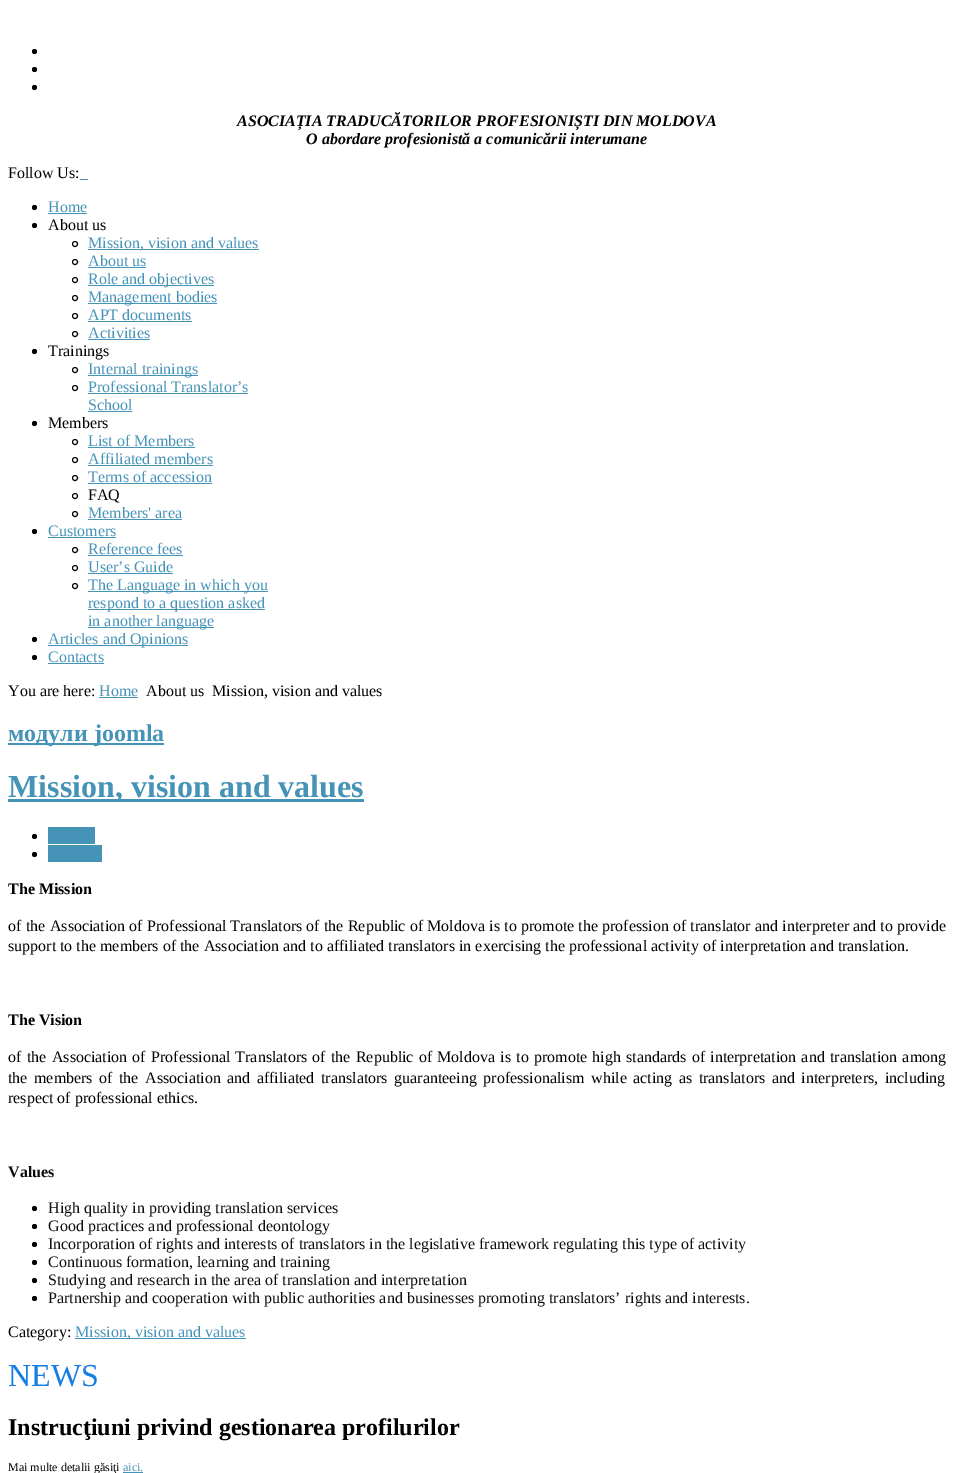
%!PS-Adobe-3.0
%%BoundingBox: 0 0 953 1473
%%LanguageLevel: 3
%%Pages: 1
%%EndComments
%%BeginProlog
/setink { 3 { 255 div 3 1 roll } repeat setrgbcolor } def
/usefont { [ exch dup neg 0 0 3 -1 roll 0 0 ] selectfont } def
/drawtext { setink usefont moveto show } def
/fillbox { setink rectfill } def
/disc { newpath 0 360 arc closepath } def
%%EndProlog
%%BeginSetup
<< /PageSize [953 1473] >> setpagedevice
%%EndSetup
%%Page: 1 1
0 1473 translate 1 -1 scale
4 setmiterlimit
0 0 953 1473 255 255 255 fillbox
0 0 0 setink
34.5 51.5 2.5 disc fill
34.5 69.5 2.5 disc fill
34.5 87.5 2.5 disc fill
(ASOCIAȚIA TRADUCĂTORILOR PROFESIONIȘTI DIN MOLDOVA) 237 126 /LiberationSerif-BoldItalic 16 0 0 0 drawtext
(O abordare profesionistă a comunicării interumane) 306 144 /LiberationSerif-BoldItalic 16 0 0 0 drawtext
(Follow Us:) 8 178 /LiberationSerif-Regular 16 0 0 0 drawtext
80 179 8 1 70 147 184 fillbox
0 0 0 setink
34.5 207.5 2.5 disc fill
(Home) 48 212 /LiberationSerif-Regular 16 70 147 184 drawtext
48 213 39 1 70 147 184 fillbox
0 0 0 setink
34.5 225.5 2.5 disc fill
(About us) 48 230 /LiberationSerif-Regular 16 0 0 0 drawtext
75 244 2.5 disc stroke
88 249 171 1 70 147 184 fillbox
(Mission, vision and values) 88 248 /LiberationSerif-Regular 16 70 147 184 drawtext
0 0 0 setink
75 262 2.5 disc stroke
(About us) 88 266 /LiberationSerif-Regular 16 70 147 184 drawtext
88 267 58 1 70 147 184 fillbox
0 0 0 setink
75 280 2.5 disc stroke
88 285 126 1 70 147 184 fillbox
(Role and objectives) 88 284 /LiberationSerif-Regular 16 70 147 184 drawtext
0 0 0 setink
75 298 2.5 disc stroke
88 303 129 1 70 147 184 fillbox
(Management bodies) 88 302 /LiberationSerif-Regular 16 70 147 184 drawtext
0 0 0 setink
75 316 2.5 disc stroke
(APT documents) 88 320 /LiberationSerif-Regular 16 70 147 184 drawtext
88 321 104 1 70 147 184 fillbox
0 0 0 setink
75 334 2.5 disc stroke
(Activities) 88 338 /LiberationSerif-Regular 16 70 147 184 drawtext
88 339 62 1 70 147 184 fillbox
0 0 0 setink
34.5 351.5 2.5 disc fill
(Trainings) 48 356 /LiberationSerif-Regular 16 0 0 0 drawtext
75 370 2.5 disc stroke
88 375 110 1 70 147 184 fillbox
(Internal trainings) 88 374 /LiberationSerif-Regular 16 70 147 184 drawtext
0 0 0 setink
75 388 2.5 disc stroke
(Professional Translator’s) 88 392 /LiberationSerif-Regular 16 70 147 184 drawtext
88 393 160 1 70 147 184 fillbox
(School) 88 410 /LiberationSerif-Regular 16 70 147 184 drawtext
88 411 44 1 70 147 184 fillbox
0 0 0 setink
34.5 423.5 2.5 disc fill
(Members) 48 428 /LiberationSerif-Regular 16 0 0 0 drawtext
75 442 2.5 disc stroke
(List of Members) 88 446 /LiberationSerif-Regular 16 70 147 184 drawtext
88 447 107 1 70 147 184 fillbox
0 0 0 setink
75 460 2.5 disc stroke
(Affiliated members) 88 464 /LiberationSerif-Regular 16 70 147 184 drawtext
88 465 125 1 70 147 184 fillbox
0 0 0 setink
75 478 2.5 disc stroke
(Terms of accession) 88 482 /LiberationSerif-Regular 16 70 147 184 drawtext
88 483 124 1 70 147 184 fillbox
0 0 0 setink
75 496 2.5 disc stroke
(FAQ) 88 500 /LiberationSerif-Regular 16 0 0 0 drawtext
75 514 2.5 disc stroke
(Members' area) 88 518 /LiberationSerif-Regular 16 70 147 184 drawtext
88 519 94 1 70 147 184 fillbox
0 0 0 setink
34.5 531.5 2.5 disc fill
(Customers) 48 536 /LiberationSerif-Regular 16 70 147 184 drawtext
48 537 68 1 70 147 184 fillbox
0 0 0 setink
75 550 2.5 disc stroke
(Reference fees) 88 554 /LiberationSerif-Regular 16 70 147 184 drawtext
88 555 95 1 70 147 184 fillbox
0 0 0 setink
75 568 2.5 disc stroke
(User’s Guide) 88 572 /LiberationSerif-Regular 16 70 147 184 drawtext
88 573 85 1 70 147 184 fillbox
0 0 0 setink
75 586 2.5 disc stroke
88 591 180 1 70 147 184 fillbox
(The Language in which you) 88 590 /LiberationSerif-Regular 16 70 147 184 drawtext
88 609 177 1 70 147 184 fillbox
(respond to a question asked) 88 608 /LiberationSerif-Regular 16 70 147 184 drawtext
88 627 126 1 70 147 184 fillbox
(in another language) 88 626 /LiberationSerif-Regular 16 70 147 184 drawtext
0 0 0 setink
34.5 639.5 2.5 disc fill
48 645 140 1 70 147 184 fillbox
(Articles and Opinions) 48 644 /LiberationSerif-Regular 16 70 147 184 drawtext
0 0 0 setink
34.5 657.5 2.5 disc fill
(Contacts) 48 662 /LiberationSerif-Regular 16 70 147 184 drawtext
48 663 56 1 70 147 184 fillbox
(You are here:) 8 696 /LiberationSerif-Regular 16 0 0 0 drawtext
(Home) 99 696 /LiberationSerif-Regular 16 70 147 184 drawtext
99 697 39 1 70 147 184 fillbox
(About us) 146 696 /LiberationSerif-Regular 16 0 0 0 drawtext
(Mission, vision and values) 212 696 /LiberationSerif-Regular 16 0 0 0 drawtext
8 743 156 2 70 147 184 fillbox
(модули joomla) 8 741 /LiberationSerif-Bold 24 70 147 184 drawtext
8 799 356 3 70 147 184 fillbox
(Mission, vision and values) 8 797 /LiberationSerif-Bold 32 70 147 184 drawtext
0 0 0 setink
34.5 836.5 2.5 disc fill
48 827 47 17 70 147 184 fillbox
0 0 0 setink
34.5 854.5 2.5 disc fill
48 845 54 17 70 147 184 fillbox
(The Mission) 8 894 /LiberationSerif-Bold 16 0 0 0 drawtext
(of) 8 931 /LiberationSerif-Regular 16 0 0 0 drawtext
26 931 moveto 0.2 0 32 (the Association of Professional Translators of the Republic of Moldova is to promote the profession of translator and interpreter and to provide) widthshow
(support to the members of the Association and to affiliated translators in exercising the professional activity of interpretation and translation.) 8 951 /LiberationSerif-Regular 16 0 0 0 drawtext
(The Vision) 8 1025 /LiberationSerif-Bold 16 0 0 0 drawtext
(of) 8 1062 /LiberationSerif-Regular 16 0 0 0 drawtext
27 1062 moveto 1.2 0 32 (the Association of Professional Translators of the Republic of Moldova is to promote high standards of interpretation and translation among) widthshow
8 1083 moveto 2.5 0 32 (the members of the Association and affiliated translators guaranteeing professionalism while acting as translators and interpreters, including) widthshow
(respect of professional ethics.) 8 1103 /LiberationSerif-Regular 16 0 0 0 drawtext
(Values) 8 1177 /LiberationSerif-Bold 16 13 13 13 drawtext
0 0 0 setink
34.5 1208.5 2.5 disc fill
(High quality in providing translation services) 48 1213 /LiberationSerif-Regular 16 13 13 13 drawtext
0 0 0 setink
34.5 1226.5 2.5 disc fill
(Good practices and professional deontology) 48 1231 /LiberationSerif-Regular 16 13 13 13 drawtext
0 0 0 setink
34.5 1244.5 2.5 disc fill
(Incorporation of rights and interests of translators in the legislative framework regulating this type of activity) 48 1249 /LiberationSerif-Regular 16 13 13 13 drawtext
0 0 0 setink
34.5 1262.5 2.5 disc fill
(Continuous formation, learning and training) 48 1267 /LiberationSerif-Regular 16 13 13 13 drawtext
0 0 0 setink
34.5 1280.5 2.5 disc fill
(Studying and research in the area of translation and interpretation) 48 1285 /LiberationSerif-Regular 16 13 13 13 drawtext
0 0 0 setink
34.5 1298.5 2.5 disc fill
(Partnership and cooperation with public authorities and businesses promoting translators’ rights and interests.) 48 1303 /LiberationSerif-Regular 16 13 13 13 drawtext
(Category:) 8 1337 /LiberationSerif-Regular 16 0 0 0 drawtext
75 1338 171 1 70 147 184 fillbox
(Mission, vision and values) 75 1337 /LiberationSerif-Regular 16 70 147 184 drawtext
(NEWS) 8 1386 /LiberationSerif-Regular 32 21 125 228 drawtext
(Instrucţiuni privind gestionarea profilurilor) 8 1435 /LiberationSerif-Bold 24 0 0 0 drawtext
(Mai multe detalii găsiţi) 8 1471 /LiberationSerif-Regular 12 0 0 0 drawtext
(aici.) 123 1471 /LiberationSerif-Regular 12 70 147 184 drawtext
123 1472 20 1 70 147 184 fillbox
showpage
%%EOF
